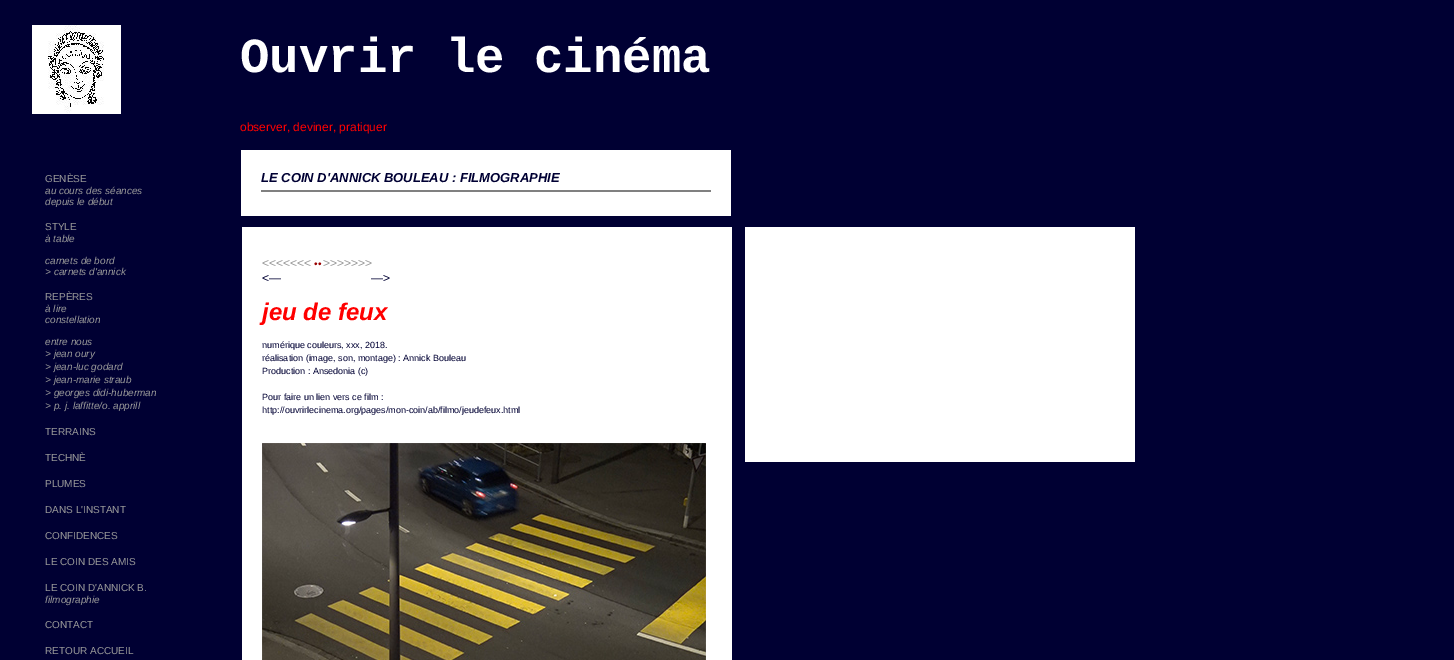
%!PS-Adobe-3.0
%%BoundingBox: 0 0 1454 660
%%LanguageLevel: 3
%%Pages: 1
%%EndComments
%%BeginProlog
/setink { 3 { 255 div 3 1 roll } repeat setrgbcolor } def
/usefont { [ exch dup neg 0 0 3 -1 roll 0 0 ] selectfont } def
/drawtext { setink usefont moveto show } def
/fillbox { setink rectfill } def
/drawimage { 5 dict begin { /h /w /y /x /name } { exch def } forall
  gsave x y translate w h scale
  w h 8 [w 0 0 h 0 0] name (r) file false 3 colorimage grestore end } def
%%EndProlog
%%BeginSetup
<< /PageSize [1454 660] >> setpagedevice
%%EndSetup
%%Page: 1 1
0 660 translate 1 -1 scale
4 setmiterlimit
0 0 1454 660 0 0 51 fillbox
(assets/img1.rgb) 32 25 89 89 drawimage
(Ouvrir le cinéma) 240 72 /LiberationMono-Bold 49 255 255 255 drawtext
(observer, deviner, pratiquer) 240 131 /LiberationSans-Regular 12 255 0 0 drawtext
(GENÈSE) 45 182 /LiberationSans-Regular 10 153 153 153 drawtext
(au cours des séances) 45 194 /LiberationSans-Italic 10 153 153 153 drawtext
(depuis le début) 45 205 /LiberationSans-Italic 10 153 153 153 drawtext
(STYLE) 45 230 /LiberationSans-Regular 10 153 153 153 drawtext
(à table) 45 242 /LiberationSans-Italic 10 153 153 153 drawtext
(carnets de bord) 45 264 /LiberationSans-Italic 10 153 153 153 drawtext
(> carnets d'annick) 45 275 /LiberationSans-Italic 10 153 153 153 drawtext
(REPÈRES) 45 300 /LiberationSans-Regular 10 153 153 153 drawtext
(à lire) 45 312 /LiberationSans-Italic 10 153 153 153 drawtext
(constellation) 45 323 /LiberationSans-Italic 10 153 153 153 drawtext
(entre nous) 45 345 /LiberationSans-Italic 10 153 153 153 drawtext
(> jean oury) 45 357 /LiberationSans-Italic 10 153 153 153 drawtext
(> jean-luc godard) 45 370 /LiberationSans-Italic 10 153 153 153 drawtext
(> jean-marie straub) 45 383 /LiberationSans-Italic 10 153 153 153 drawtext
(> georges didi-huberman) 45 396 /LiberationSans-Italic 10 153 153 153 drawtext
(> p. j. laffitte/o. apprill) 45 409 /LiberationSans-Italic 10 153 153 153 drawtext
(TERRAINS) 45 435 /LiberationSans-Regular 10 153 153 153 drawtext
(TECHNÈ) 45 461 /LiberationSans-Regular 10 153 153 153 drawtext
(PLUMES) 45 487 /LiberationSans-Regular 10 153 153 153 drawtext
(DANS L'INSTANT) 45 513 /LiberationSans-Regular 10 153 153 153 drawtext
(CONFIDENCES) 45 539 /LiberationSans-Regular 10 153 153 153 drawtext
(LE COIN DES AMIS) 45 565 /LiberationSans-Regular 10 153 153 153 drawtext
(LE COIN D'ANNICK B.) 45 591 /LiberationSans-Regular 10 153 153 153 drawtext
(filmographie) 45 603 /LiberationSans-Italic 10 153 153 153 drawtext
(CONTACT) 45 628 /LiberationSans-Regular 10 153 153 153 drawtext
(RETOUR ACCUEIL) 45 654 /LiberationSans-Regular 10 153 153 153 drawtext
241 150 490 66 255 255 255 fillbox
(LE COIN D'ANNICK BOULEAU : FILMOGRAPHIE) 261 182 /LiberationSans-BoldItalic 13 0 0 51 drawtext
261 190 450 2 128 128 128 fillbox
745 227 390 235 255 255 255 fillbox
242 227 490 433 255 255 255 fillbox
(<<<<<<<) 262 267 /LiberationSans-Regular 12 153 153 153 drawtext
(••) 314 267 /LiberationSerif-BoldItalic 10 153 0 0 drawtext
(>>>>>>>) 323 267 /LiberationSans-Regular 12 153 153 153 drawtext
(<—                           —>) 262 282 /LiberationSans-Regular 12 0 0 51 drawtext
(jeu de feux) 262 320 /LiberationSans-BoldItalic 24 255 0 0 drawtext
(numérique couleurs, xxx, 2018.) 262 348 /LiberationSans-Regular 9 0 0 51 drawtext
(réalisation \(image, son, montage\) : Annick Bouleau) 262 361 /LiberationSans-Regular 9 0 0 51 drawtext
(Production : Ansedonia \(c\)) 262 374 /LiberationSans-Regular 9 0 0 51 drawtext
(Pour faire un lien vers ce film :) 262 400 /LiberationSans-Regular 9 0 0 51 drawtext
(http://ouvrirlecinema.org/pages/mon-coin/ab/filmo/jeudefeux.html) 262 413 /LiberationSans-Regular 9 0 0 51 drawtext
(assets/img2.rgb) 262 443 444 217 drawimage
showpage
%%EOF
